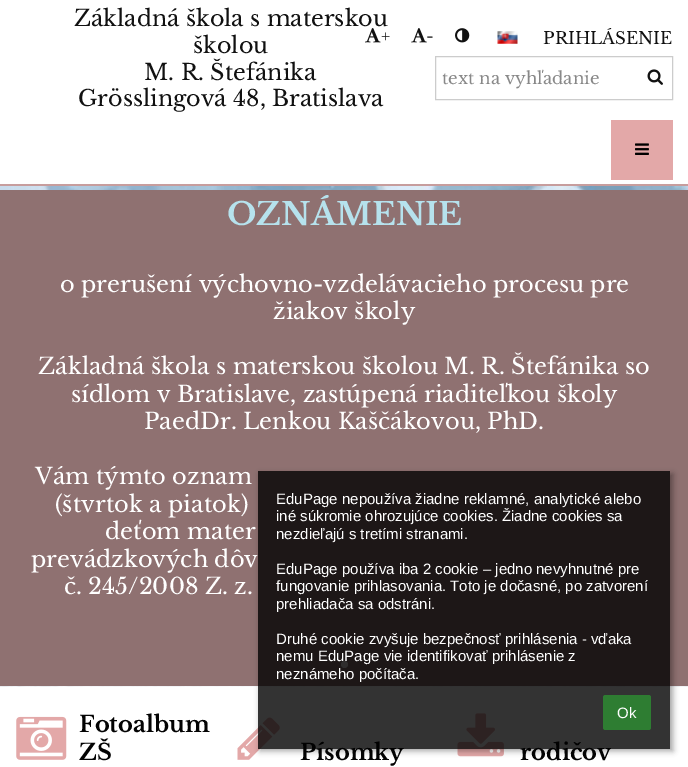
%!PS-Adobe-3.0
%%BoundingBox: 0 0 688 767
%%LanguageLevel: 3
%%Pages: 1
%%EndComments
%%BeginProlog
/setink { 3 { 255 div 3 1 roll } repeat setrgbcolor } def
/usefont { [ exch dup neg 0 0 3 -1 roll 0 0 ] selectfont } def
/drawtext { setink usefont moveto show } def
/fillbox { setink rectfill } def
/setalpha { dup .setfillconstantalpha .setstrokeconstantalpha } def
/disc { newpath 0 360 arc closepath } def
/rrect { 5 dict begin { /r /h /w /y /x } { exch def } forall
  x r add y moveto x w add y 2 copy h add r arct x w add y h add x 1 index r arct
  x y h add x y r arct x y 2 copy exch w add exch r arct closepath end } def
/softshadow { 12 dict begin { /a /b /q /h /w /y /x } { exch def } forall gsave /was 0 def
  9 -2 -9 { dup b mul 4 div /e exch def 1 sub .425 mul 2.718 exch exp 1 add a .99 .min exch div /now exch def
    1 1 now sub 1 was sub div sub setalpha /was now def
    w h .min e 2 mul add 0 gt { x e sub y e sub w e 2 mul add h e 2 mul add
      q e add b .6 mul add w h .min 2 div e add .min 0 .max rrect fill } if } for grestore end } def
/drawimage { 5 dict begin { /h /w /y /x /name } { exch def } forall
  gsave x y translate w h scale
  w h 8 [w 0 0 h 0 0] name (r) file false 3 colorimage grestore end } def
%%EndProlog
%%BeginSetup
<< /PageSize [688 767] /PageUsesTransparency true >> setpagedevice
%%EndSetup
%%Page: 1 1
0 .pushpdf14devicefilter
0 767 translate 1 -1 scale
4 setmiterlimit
0 0 688 767 255 255 255 fillbox
(Základná škola s materskou) 74 26 /LibreBaskerville-Regular 22.25 17 17 17 drawtext
(školou) 193 53 /LibreBaskerville-Regular 22.25 17 17 17 drawtext
(M. R. Štefánika) 144 80 /LibreBaskerville-Regular 22.25 17 17 17 drawtext
(Grösslingová 48, Bratislava) 78 106 /LibreBaskerville-Regular 22.25 17 17 17 drawtext
(assets/img1.rgb) 365 28 16 15 drawimage
(+) 381 42 /LibreBaskerville-Regular 16.75 17 17 17 drawtext
(assets/img2.rgb) 411 28 16 15 drawimage
(-) 426 42 /LibreBaskerville-Regular 16.75 17 17 17 drawtext
(assets/img3.rgb) 455 28 15 15 drawimage
(assets/img4.rgb) 497 31 21 13 drawimage
(PRIHLÁSENIE) 543 44 /LibreBaskerville-Regular 16.75 17 17 17 drawtext
204 204 204 setink
435.5 56.5 237 43 rectstroke
(text na vyhľadanie) 442 84 /LibreBaskerville-Regular 16.75 136 136 136 drawtext
(assets/img5.rgb) 647 69 16 16 drawimage
0 184 688 2 199 157 157 fillbox
611 120 62 60 227 168 168 fillbox
(assets/img6.rgb) 635 143 14 12 drawimage
(assets/img7.rgb) 0 186 688 501 drawimage
0 190 688 496 143 113 113 fillbox
(OZNÁMENIE) 227 225 /LibreBaskerville-Bold 31.25 182 226 237 drawtext
(o prerušení výchovno-vzdelávacieho procesu pre) 60 292 /LibreBaskerville-Regular 22.5 255 255 255 drawtext
(žiakov školy) 273 319 /LibreBaskerville-Regular 22.5 255 255 255 drawtext
(Základná škola s materskou školou M. R. Štefánika so) 38 374 /LibreBaskerville-Regular 22.5 255 255 255 drawtext
(sídlom v Bratislave, zastúpená riaditeľkou školy) 71 402 /LibreBaskerville-Regular 22.5 255 255 255 drawtext
(PaedDr. Lenkou Kaščákovou, PhD.) 144 429 /LibreBaskerville-Regular 22.5 255 255 255 drawtext
(Vám týmto oznam) 35 484 /LibreBaskerville-Regular 22.5 255 255 255 drawtext
(\(štvrtok a piatok\)) 55 512 /LibreBaskerville-Regular 22.5 255 255 255 drawtext
(deťom mater) 105 539 /LibreBaskerville-Regular 22.5 255 255 255 drawtext
(prevádzkových dôv) 31 567 /LibreBaskerville-Regular 22.5 255 255 255 drawtext
(č. 245/2008 Z. z.) 64 594 /LibreBaskerville-Regular 22.5 255 255 255 drawtext
233 227 227 setink
344.5 664.5 3.5 disc fill
(assets/img8.rgb) 16 716 51 44 drawimage
(Fotoalbum) 79 732 /LibreBaskerville-Bold 22.5 3 3 3 drawtext
(ZŠ) 79 760 /LibreBaskerville-Bold 22.5 3 3 3 drawtext
(assets/img9.rgb) 237 717 43 43 drawimage
(Písomky) 300 760 /LibreBaskerville-Bold 22.5 3 3 3 drawtext
(assets/img10.rgb) 457 713 47 44 drawimage
(rodičov) 520 760 /LibreBaskerville-Bold 22.5 3 3 3 drawtext
gsave
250 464 moveto 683 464 lineto 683 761 lineto 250 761 lineto closepath 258 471 moveto 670 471 lineto 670 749 lineto 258 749 lineto closepath eoclip newpath
0 0 0 setink
260 474 413 277 0 3 0.35 softshadow
grestore
0.8 setalpha
258 471 412 278 0 0 0 fillbox
1 setalpha
(EduPage nepoužíva žiadne reklamné, analytické alebo) 276 504 /LiberationSans-Regular 15 255 255 255 drawtext
(iné súkromie ohrozujúce cookies. Žiadne cookies sa) 276 521 /LiberationSans-Regular 15 255 255 255 drawtext
(nezdieľajú s tretími stranami.) 276 539 /LiberationSans-Regular 15 255 255 255 drawtext
(EduPage používa iba 2 cookie – jedno nevyhnutné pre) 276 574 /LiberationSans-Regular 15 255 255 255 drawtext
(fungovanie prihlasovania. Toto je dočasné, po zatvorení) 276 591 /LiberationSans-Regular 15 255 255 255 drawtext
(prehliadača sa odstráni.) 276 609 /LiberationSans-Regular 15 255 255 255 drawtext
(Druhé cookie zvyšuje bezpečnosť prihlásenia - vďaka) 276 644 /LiberationSans-Regular 15 255 255 255 drawtext
(nemu EduPage vie identifikovať prihlásenie z) 276 661 /LiberationSans-Regular 15 255 255 255 drawtext
(neznámeho počítača.) 276 679 /LiberationSans-Regular 15 255 255 255 drawtext
46 125 50 setink
603 695 48 35 2.5 rrect fill
(Ok) 617 718 /LiberationSans-Regular 15 255 255 255 drawtext
.poppdf14devicefilter showpage
%%EOF
